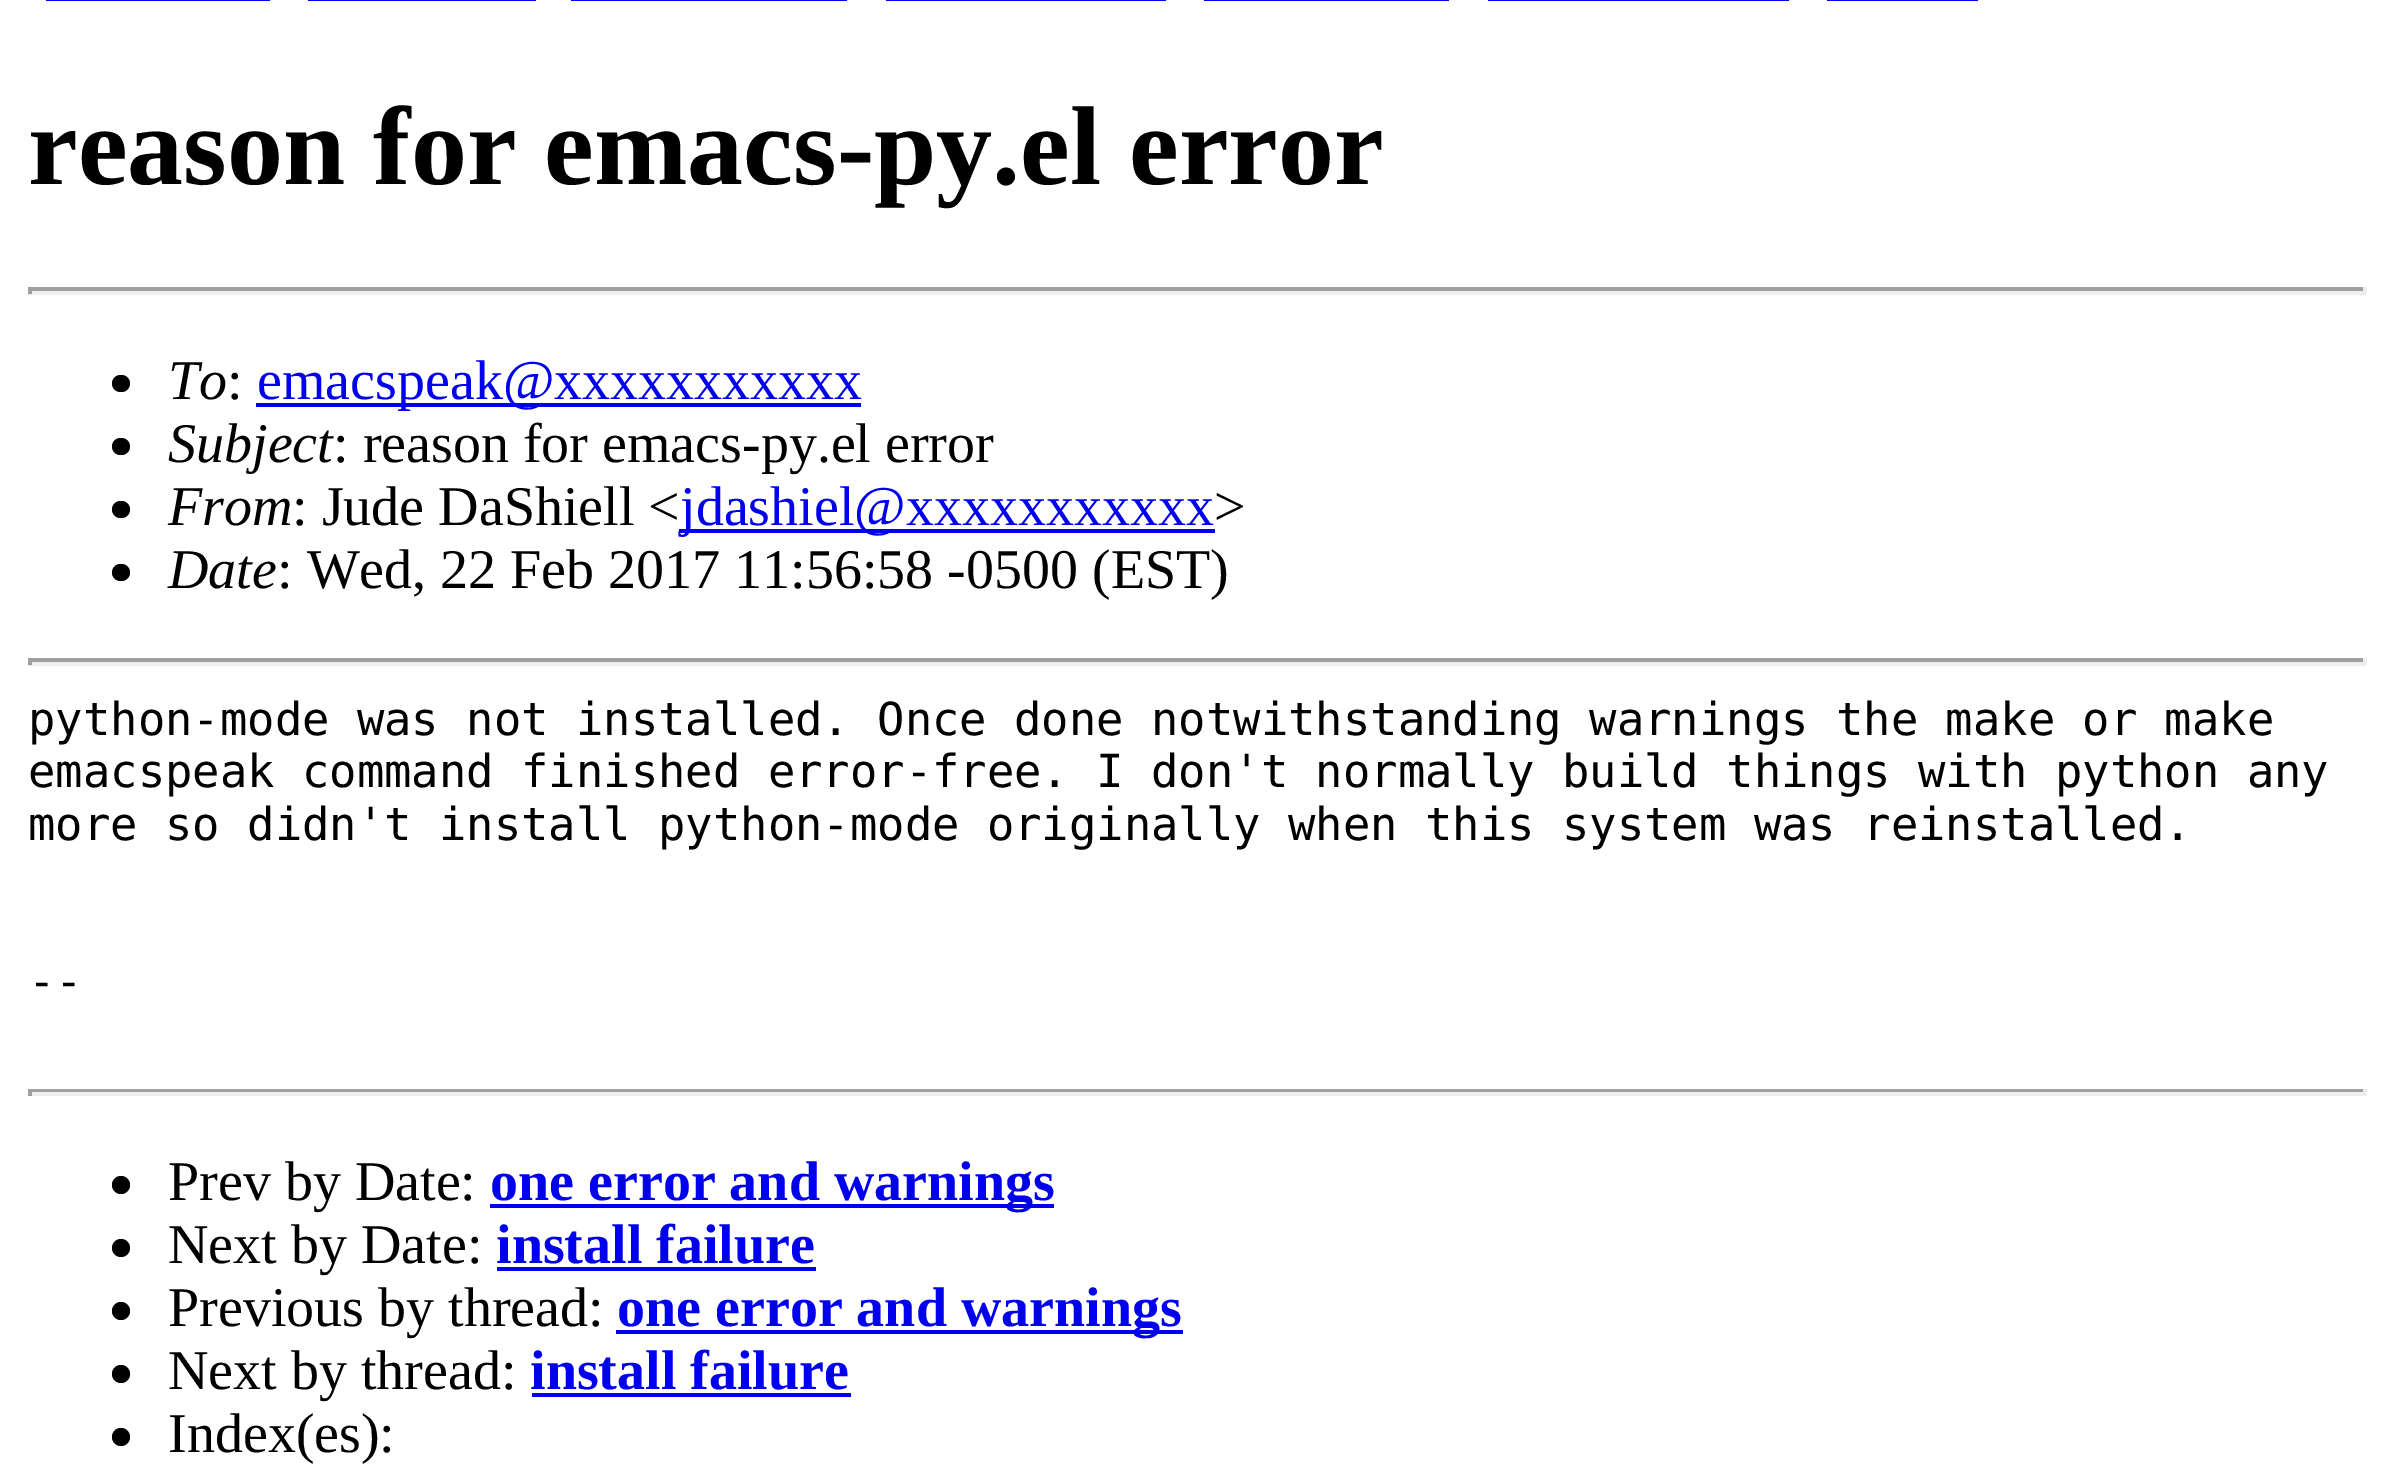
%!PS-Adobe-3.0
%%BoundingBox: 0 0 2391 1468
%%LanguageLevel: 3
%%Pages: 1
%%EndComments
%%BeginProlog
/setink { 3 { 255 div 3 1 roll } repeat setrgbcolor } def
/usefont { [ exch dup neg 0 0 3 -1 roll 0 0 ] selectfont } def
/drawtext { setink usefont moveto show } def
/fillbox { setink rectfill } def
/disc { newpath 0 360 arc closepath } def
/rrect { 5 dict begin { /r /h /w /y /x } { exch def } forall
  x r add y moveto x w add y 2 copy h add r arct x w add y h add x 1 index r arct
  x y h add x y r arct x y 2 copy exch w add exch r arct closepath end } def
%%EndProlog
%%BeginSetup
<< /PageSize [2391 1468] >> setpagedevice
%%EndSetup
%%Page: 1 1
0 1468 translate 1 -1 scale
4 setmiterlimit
0 0 2391 1468 255 255 255 fillbox
46 0 224 1 0 0 238 fillbox
308 0 228 1 0 0 238 fillbox
571 0 276 1 0 0 238 fillbox
886 0 280 1 0 0 238 fillbox
1204 0 245 1 0 0 238 fillbox
1488 0 301 1 0 0 238 fillbox
1827 0 151 1 0 0 238 fillbox
(reason for emacs-py.el error) 28 184 /LiberationSerif-Bold 112 0 0 0 drawtext
28 287 2338 4 159 159 159 fillbox
2363 287 4 7 238 238 238 fillbox
28 291 2338 4 238 238 238 fillbox
28 287 4 7 159 159 159 fillbox
0 0 0 setink
112 375 18 17 8.5 rrect fill
(To) 168 399 /LiberationSerif-Italic 56 0 0 0 drawtext
(:) 227 399 /LiberationSerif-Regular 56 0 0 0 drawtext
256 403 605 4 0 0 238 fillbox
(emacspeak@xxxxxxxxxxx) 257 399 /LiberationSerif-Regular 56 0 0 238 drawtext
0 0 0 setink
112 438 18 17 8.5 rrect fill
(Subject) 168 462 /LiberationSerif-Italic 56 0 0 0 drawtext
(: reason for emacs-py.el error) 333 462 /LiberationSerif-Regular 56 0 0 0 drawtext
112 501 18 17 8.5 rrect fill
(From) 168 525 /LiberationSerif-Italic 56 0 0 0 drawtext
(: Jude DaShiell <) 292 525 /LiberationSerif-Regular 56 0 0 0 drawtext
679 529 536 4 0 0 238 fillbox
(jdashiel@xxxxxxxxxxx) 680 525 /LiberationSerif-Regular 56 0 0 238 drawtext
(>) 1214 525 /LiberationSerif-Regular 56 0 0 0 drawtext
112 564 18 17 8.5 rrect fill
(Date) 168 588 /LiberationSerif-Italic 56 0 0 0 drawtext
(: Wed, 22 Feb 2017 11:56:58 -0500 \(EST\)) 277 588 /LiberationSerif-Regular 56 0 0 0 drawtext
28 658 2338 4 159 159 159 fillbox
2363 658 4 7 238 238 238 fillbox
28 662 2338 4 238 238 238 fillbox
28 658 4 7 159 159 159 fillbox
(python-mode was not installed. Once done notwithstanding warnings the make or make) 28 735 /DejaVuSansMono-Regular 45.5 0 0 0 drawtext
(emacspeak command finished error-free. I don't normally build things with python any) 28 787 /DejaVuSansMono-Regular 45.5 0 0 0 drawtext
(more so didn't install python-mode originally when this system was reinstalled.) 28 840 /DejaVuSansMono-Regular 45.5 0 0 0 drawtext
(--) 28 997 /DejaVuSansMono-Regular 45.5 0 0 0 drawtext
28 1089 2338 3 159 159 159 fillbox
2363 1089 4 7 238 238 238 fillbox
28 1092 2338 4 238 238 238 fillbox
28 1089 4 7 159 159 159 fillbox
0 0 0 setink
121 1185 9 disc fill
(Prev by Date:) 168 1200 /LiberationSerif-Regular 56 0 0 0 drawtext
490 1204 564 4 0 0 238 fillbox
(one error and warnings) 490 1200 /LiberationSerif-Bold 56 0 0 238 drawtext
0 0 0 setink
121 1248 9 disc fill
(Next by Date:) 168 1263 /LiberationSerif-Regular 56 0 0 0 drawtext
(install failure) 496 1263 /LiberationSerif-Bold 56 0 0 238 drawtext
497 1267 319 4 0 0 238 fillbox
0 0 0 setink
121 1311 9 disc fill
(Previous by thread:) 168 1326 /LiberationSerif-Regular 56 0 0 0 drawtext
616 1330 567 4 0 0 238 fillbox
(one error and warnings) 617 1326 /LiberationSerif-Bold 56 0 0 238 drawtext
0 0 0 setink
121 1374 9 disc fill
(Next by thread:) 168 1389 /LiberationSerif-Regular 56 0 0 0 drawtext
(install failure) 530 1389 /LiberationSerif-Bold 56 0 0 238 drawtext
532 1393 319 4 0 0 238 fillbox
0 0 0 setink
121 1437 9 disc fill
(Index\(es\):) 168 1452 /LiberationSerif-Regular 56 0 0 0 drawtext
showpage
%%EOF
